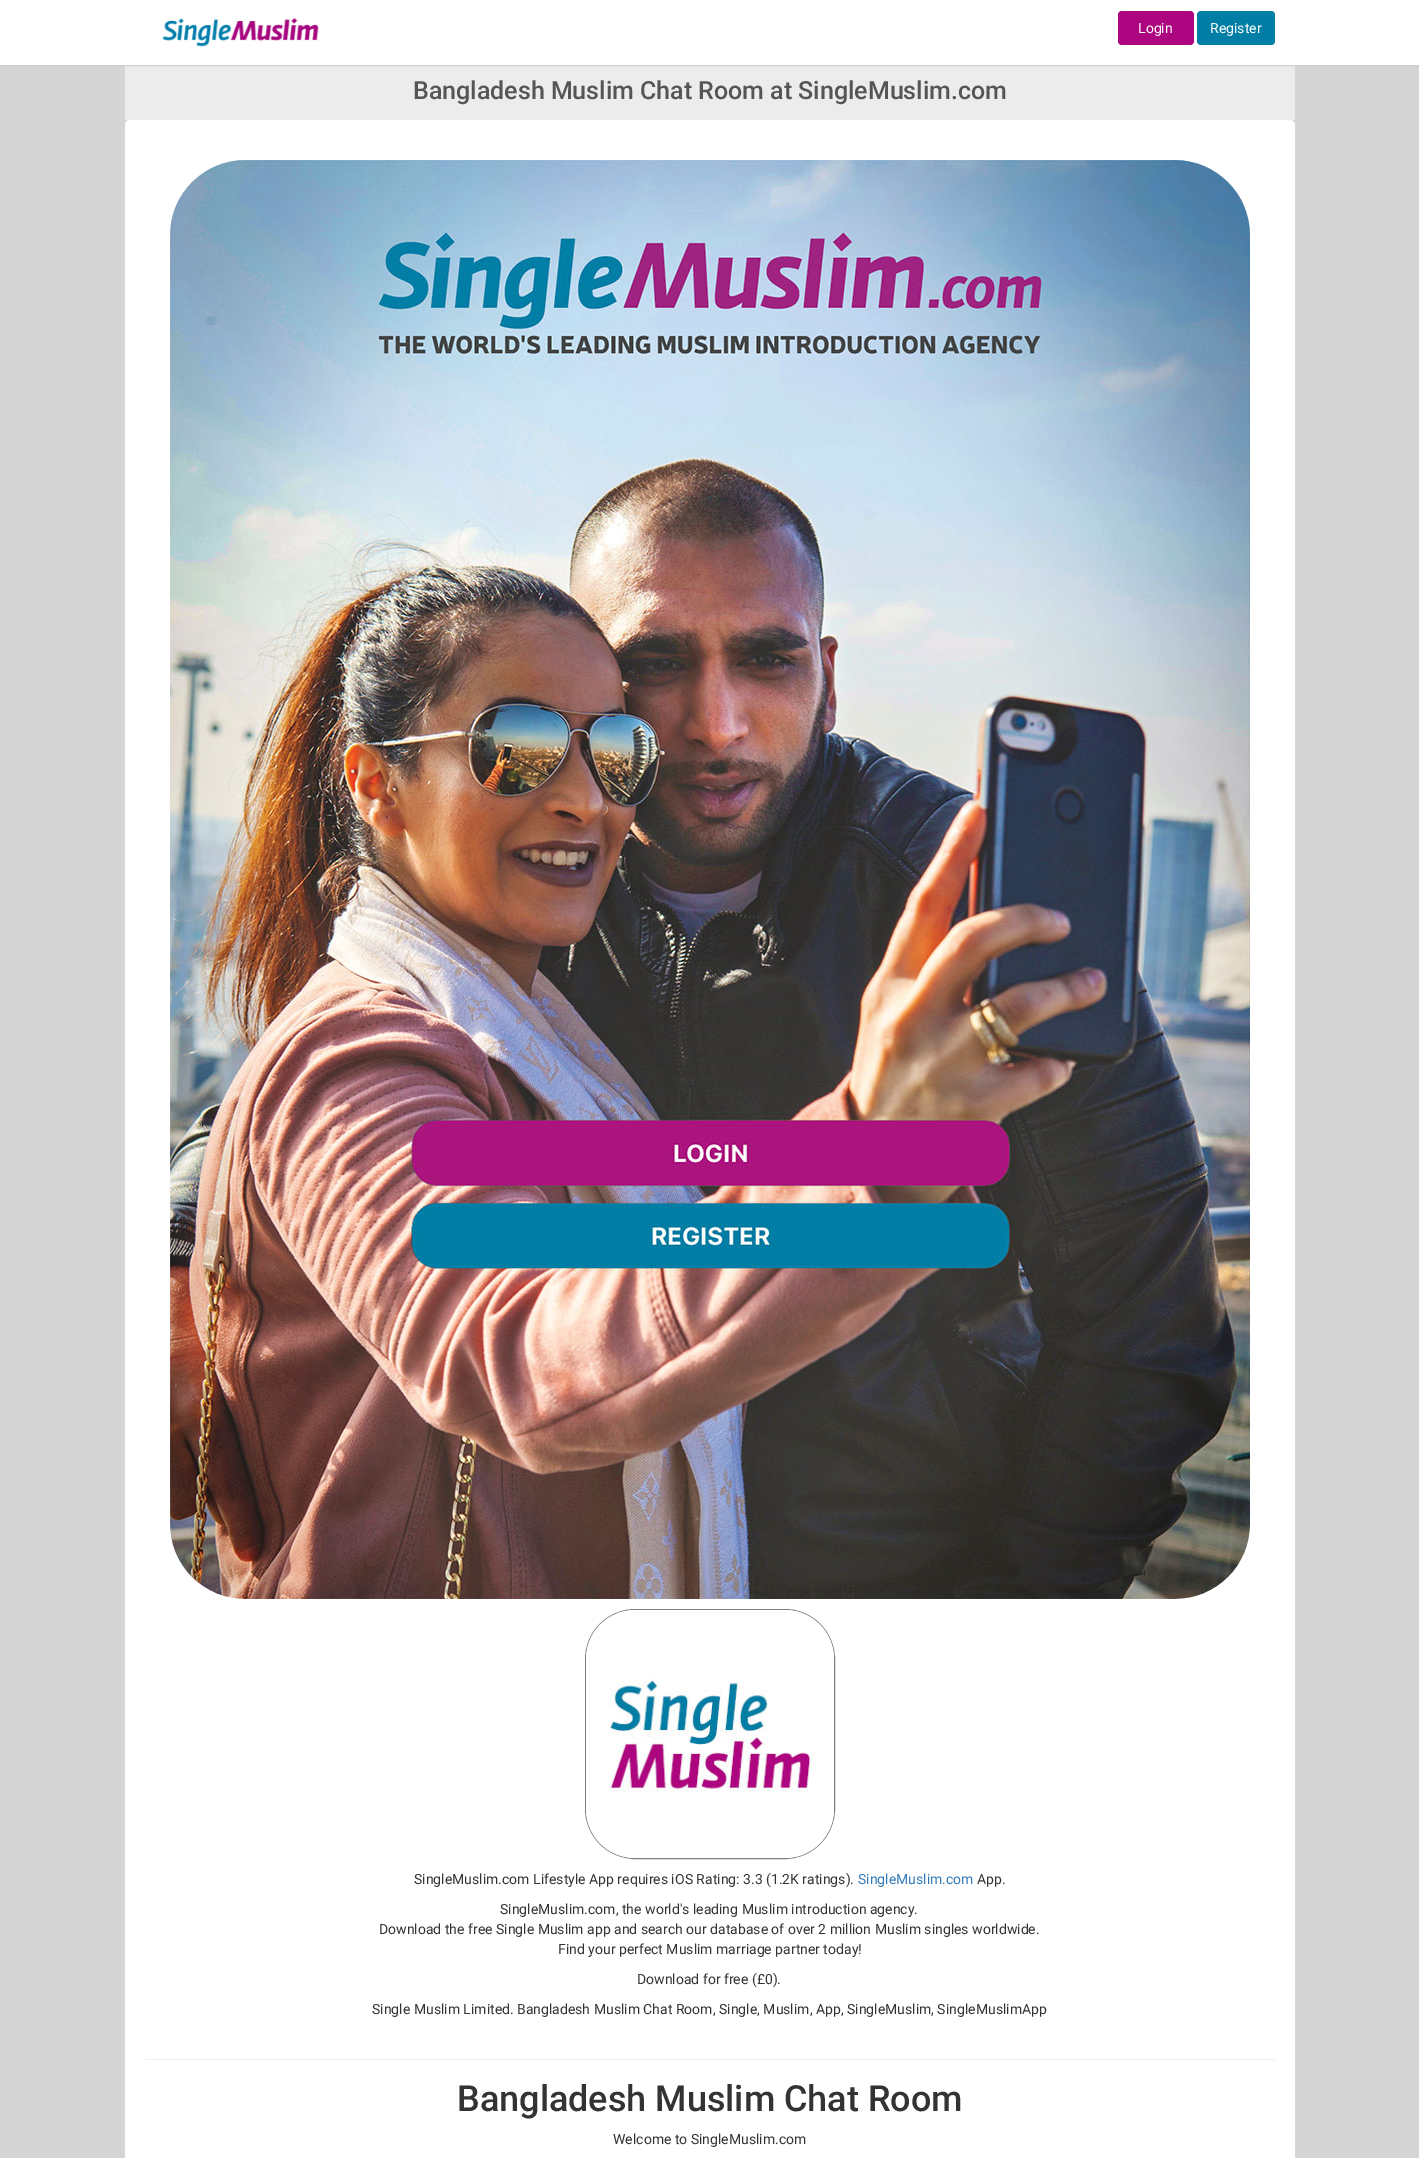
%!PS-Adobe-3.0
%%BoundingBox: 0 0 1419 2158
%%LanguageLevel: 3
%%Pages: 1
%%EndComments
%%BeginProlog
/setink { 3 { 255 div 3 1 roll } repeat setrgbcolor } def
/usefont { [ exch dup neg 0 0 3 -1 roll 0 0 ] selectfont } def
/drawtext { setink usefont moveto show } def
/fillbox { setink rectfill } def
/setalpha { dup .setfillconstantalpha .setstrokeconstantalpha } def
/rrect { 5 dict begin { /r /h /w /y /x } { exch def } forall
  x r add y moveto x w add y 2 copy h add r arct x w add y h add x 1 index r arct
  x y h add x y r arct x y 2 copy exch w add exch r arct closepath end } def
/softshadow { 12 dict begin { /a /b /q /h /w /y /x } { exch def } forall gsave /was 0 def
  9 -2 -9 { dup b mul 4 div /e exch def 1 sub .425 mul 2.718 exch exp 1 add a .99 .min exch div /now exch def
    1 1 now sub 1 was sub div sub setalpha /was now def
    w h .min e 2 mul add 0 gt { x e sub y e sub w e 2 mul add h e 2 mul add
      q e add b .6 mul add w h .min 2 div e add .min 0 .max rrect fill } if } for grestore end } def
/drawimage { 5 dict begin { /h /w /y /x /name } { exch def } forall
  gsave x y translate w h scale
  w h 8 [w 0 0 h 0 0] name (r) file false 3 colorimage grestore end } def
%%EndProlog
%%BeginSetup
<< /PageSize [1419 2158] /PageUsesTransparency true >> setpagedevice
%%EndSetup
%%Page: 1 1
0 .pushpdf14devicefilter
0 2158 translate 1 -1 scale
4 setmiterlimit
0 0 1419 2158 214 213 213 fillbox
125 66 1170 53 236 236 236 fillbox
36 37 38 setink
0 0 1419 65 0 1.5 0.08 softshadow
0 0 1419 65 255 255 255 fillbox
(assets/img1.rgb) 162 18 157 29 drawimage
173 5 127 setink
1118 11 76 34 4 rrect fill
(Login) 1138 33 /Roboto-Regular 14 255 255 255 drawtext
0 126 165 setink
1197 11 78 34 4 rrect fill
(Register) 1210 33 /Roboto-Regular 14 255 255 255 drawtext
125 119 1170 1 238 238 238 fillbox
(Bangladesh Muslim Chat Room at SingleMuslim.com) 413 99 /Roboto-Medium 25 85 85 85 drawtext
255 255 255 setink
125 120 1170 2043 5 rrect fill
(assets/img2.rgb) 170 160 1080 1439 drawimage
128 128 128 setink
585.5 1609.5 249 249 49.5 rrect stroke
(assets/img3.rgb) 586 1610 248 248 drawimage
(SingleMuslim.com Lifestyle App requires iOS Rating: 3.3 \(1.2K ratings\).) 414 1884 /Roboto-Regular 14 51 51 51 drawtext
(SingleMuslim.com) 858 1884 /Roboto-Regular 14 51 122 183 drawtext
(App.) 977 1884 /Roboto-Regular 14 51 51 51 drawtext
(SingleMuslim.com, the world's leading Muslim introduction agency.) 500 1914 /Roboto-Regular 14 51 51 51 drawtext
(Download the free Single Muslim app and search our database of over 2 million Muslim singles worldwide.) 379 1934 /Roboto-Regular 14 51 51 51 drawtext
(Find your perfect Muslim marriage partner today!) 558 1954 /Roboto-Regular 14 51 51 51 drawtext
(Download for free \(£0\).) 637 1984 /Roboto-Regular 14 51 51 51 drawtext
(Single Muslim Limited. Bangladesh Muslim Chat Room, Single, Muslim, App, SingleMuslim, SingleMuslimApp) 372 2014 /Roboto-Regular 14 51 51 51 drawtext
145 2059 1130 1 238 238 238 fillbox
(Bangladesh Muslim Chat Room) 457 2111 /Roboto-Medium 36 51 51 51 drawtext
(Welcome to SingleMuslim.com) 613 2144 /Roboto-Regular 14 51 51 51 drawtext
.poppdf14devicefilter showpage
%%EOF
